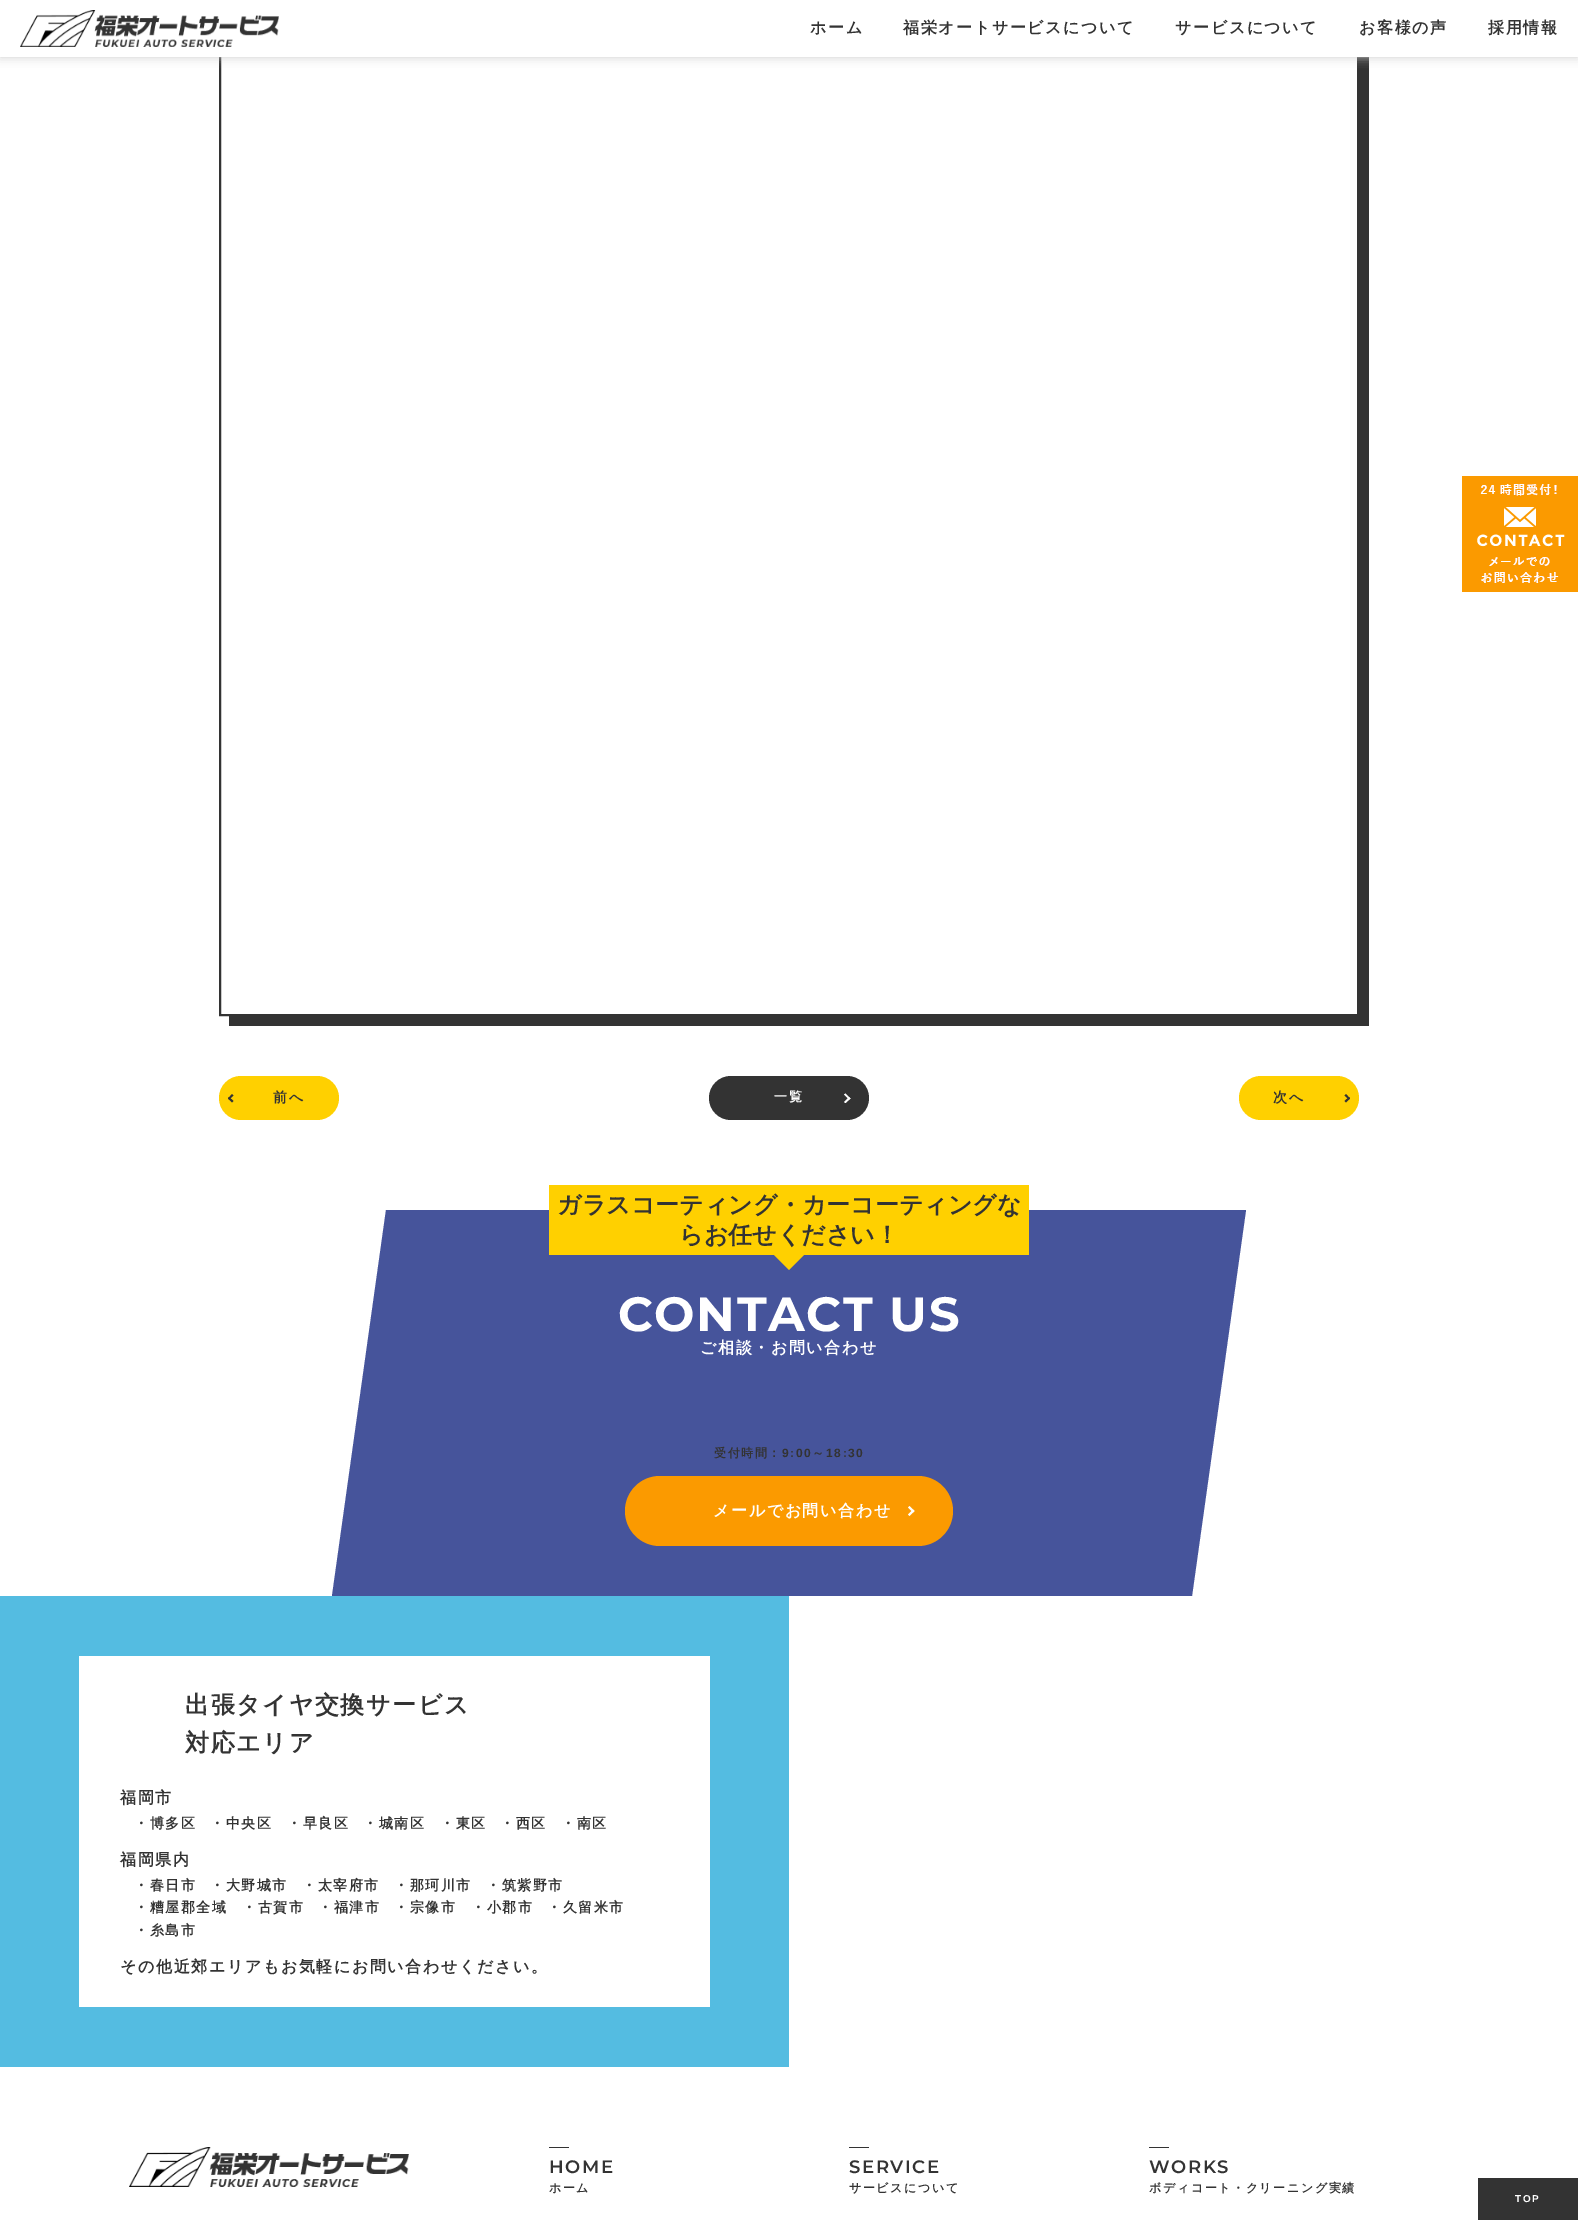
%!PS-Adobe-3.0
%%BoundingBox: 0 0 1578 2220
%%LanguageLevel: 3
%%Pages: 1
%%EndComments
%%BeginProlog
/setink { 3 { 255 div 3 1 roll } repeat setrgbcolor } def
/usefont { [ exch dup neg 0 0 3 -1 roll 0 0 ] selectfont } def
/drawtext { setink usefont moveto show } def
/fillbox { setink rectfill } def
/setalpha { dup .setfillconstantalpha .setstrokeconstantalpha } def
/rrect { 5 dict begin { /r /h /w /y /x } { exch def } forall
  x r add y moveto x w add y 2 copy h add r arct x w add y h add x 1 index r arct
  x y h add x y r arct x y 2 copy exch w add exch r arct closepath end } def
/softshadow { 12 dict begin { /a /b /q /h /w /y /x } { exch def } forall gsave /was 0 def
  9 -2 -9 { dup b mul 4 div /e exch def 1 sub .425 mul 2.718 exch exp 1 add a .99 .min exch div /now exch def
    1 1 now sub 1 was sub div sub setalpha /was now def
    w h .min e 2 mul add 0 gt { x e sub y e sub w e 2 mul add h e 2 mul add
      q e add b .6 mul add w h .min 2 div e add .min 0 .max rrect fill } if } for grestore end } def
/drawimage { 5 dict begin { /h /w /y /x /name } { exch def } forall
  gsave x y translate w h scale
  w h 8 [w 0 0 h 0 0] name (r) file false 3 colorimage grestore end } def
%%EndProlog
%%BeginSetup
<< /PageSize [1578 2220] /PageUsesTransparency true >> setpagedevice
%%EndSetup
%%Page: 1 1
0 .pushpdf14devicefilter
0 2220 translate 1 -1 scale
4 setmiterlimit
0 0 1578 2220 255 255 255 fillbox
51 51 51 setink
229 1016 moveto 229 1026 lineto 1369 1026 lineto 1369 -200 lineto 1359 -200 lineto 1359 1016 lineto closepath fill
2 setlinewidth
220 -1 1138 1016 rectstroke
204 204 204 setink
0 0 1578 57 0 5 1 softshadow
0 0 1578 57 255 255 255 fillbox
(assets/img1.rgb) 20 10 259 37 drawimage
/WenQuanYiZenHei-Bold 16 usefont
51 51 51 setink
810 33 moveto 1.6 0 (ホーム) ashow
903 33 moveto 1.6 0 (福栄オートサービスについて) ashow
1175 33 moveto 1.6 0 (サービスについて) ashow
1359 33 moveto 1.6 0 (お客様の声) ashow
1488 33 moveto 1.6 0 (採用情報) ashow
255 208 0 setink
219 1076 120 44 22 rrect fill
51 51 51 setink
232 1102.5 moveto 228 1098.5 lineto 229 1097 lineto 233.5 1101 lineto closepath fill
229 1099.5 moveto 228 1098.5 lineto 232 1094 lineto 233.5 1095.5 lineto closepath fill
/WenQuanYiZenHei-Bold 14 usefont
273 1102 moveto 1.6 0 (前へ) ashow
709 1076 160 44 22 rrect fill
/WenQuanYiZenHei-Bold 13 usefont
255 255 255 setink
774 1101 moveto 1.6 0 (一覧) ashow
845.5 1093.5 moveto 850.5 1098.5 lineto 849 1099.5 lineto 844 1094.5 lineto closepath fill
849 1097 moveto 850.5 1098.5 lineto 845.5 1103 lineto 844 1102 lineto closepath fill
255 208 0 setink
1239 1076 120 44 22 rrect fill
/WenQuanYiZenHei-Bold 14 usefont
51 51 51 setink
1273 1102 moveto 1.6 0 (次へ) ashow
1346 1094 moveto 1350 1098.5 lineto 1349 1099.5 lineto 1344.5 1095.5 lineto closepath fill
1349 1097 moveto 1350 1098.5 lineto 1346 1102.5 lineto 1344.5 1101 lineto closepath fill
70 84 155 setink
386 1210 moveto 1246 1210 lineto 1192 1596 lineto 332 1596 lineto closepath fill
549 1185 480 70 255 208 0 fillbox
(ガラスコーティング・カーコーティングな) 557 1213 /WenQuanYiZenHei-Bold 24 51 51 51 drawtext
(らお任せください！) 679 1243 /WenQuanYiZenHei-Bold 24 51 51 51 drawtext
255 208 0 setink
774 1255 moveto 804 1255 lineto 789 1270 lineto closepath fill
/Montserrat-Bold 48 usefont
255 255 255 setink
618 1331 moveto 1.6 0 (CONTACT US) ashow
/WenQuanYiZenHei-Bold 16 usefont
700 1353 moveto 1.6 0 (ご相談・お問い合わせ) ashow
/WenQuanYiZenHei-Bold 12 usefont
51 51 51 setink
714 1457 moveto 1.6 0 (受付時間：) ashow
/LiberationSans-Bold 12 usefont
782 1457 moveto 1.6 0 (9:00) ashow
/WenQuanYiZenHei-Bold 12 usefont
812 1457 moveto 1.6 0 (～) ashow
/LiberationSans-Bold 12 usefont
826 1457 moveto 1.6 0 (18:30) ashow
251 154 0 setink
625 1476 328 70 35 rrect fill
/WenQuanYiZenHei-Bold 16 usefont
255 255 255 setink
713 1516 moveto 1.6 0 (メールでお問い合わせ) ashow
909.5 1506 moveto 914.5 1511 lineto 913 1512.5 lineto 908 1507.5 lineto closepath fill
913 1509.5 moveto 914.5 1511 lineto 909.5 1516 lineto 908 1514.5 lineto closepath fill
0 1596 789 471 84 188 225 fillbox
79 1656 631 351 255 255 255 fillbox
/WenQuanYiZenHei-Bold 24 usefont
51 51 51 setink
185 1713 moveto 1.6 0 (出張タイヤ交換サービス) ashow
185 1751 moveto 1.6 0 (対応エリア) ashow
/WenQuanYiZenHei-Bold 16 usefont
120 1803 moveto 1.6 0 (福岡市) ashow
/WenQuanYiZenHei-Bold 14 usefont
134 1828 moveto 1.6 0 (・博多区) ashow
210 1828 moveto 1.6 0 (・中央区) ashow
287 1828 moveto 1.6 0 (・早良区) ashow
363 1828 moveto 1.6 0 (・城南区) ashow
440 1828 moveto 1.6 0 (・東区) ashow
500 1828 moveto 1.6 0 (・西区) ashow
561 1828 moveto 1.6 0 (・南区) ashow
/WenQuanYiZenHei-Bold 16 usefont
120 1865 moveto 1.6 0 (福岡県内) ashow
/WenQuanYiZenHei-Bold 14 usefont
134 1890 moveto 1.6 0 (・春日市) ashow
210 1890 moveto 1.6 0 (・大野城市) ashow
302 1890 moveto 1.6 0 (・太宰府市) ashow
394 1890 moveto 1.6 0 (・那珂川市) ashow
486 1890 moveto 1.6 0 (・筑紫野市) ashow
134 1912 moveto 1.6 0 (・糟屋郡全域) ashow
242 1912 moveto 1.6 0 (・古賀市) ashow
318 1912 moveto 1.6 0 (・福津市) ashow
394 1912 moveto 1.6 0 (・宗像市) ashow
471 1912 moveto 1.6 0 (・小郡市) ashow
547 1912 moveto 1.6 0 (・久留米市) ashow
134 1935 moveto 1.6 0 (・糸島市) ashow
/WenQuanYiZenHei-Bold 16 usefont
120 1972 moveto 1.6 0 (その他近郊エリアもお気軽にお問い合わせください。) ashow
(assets/img2.rgb) 1462 476 116 116 drawimage
(assets/img3.rgb) 129 2147 280 40 drawimage
549 2147 20 1 51 51 51 fillbox
/Montserrat-SemiBold 18 usefont
549 2173 moveto 1.6 0 (HOME) ashow
/WenQuanYiZenHei-Bold 12 usefont
549 2192 moveto 1.6 0 (ホーム) ashow
849 2147 20 1 51 51 51 fillbox
/Montserrat-SemiBold 18 usefont
849 2173 moveto 1.6 0 (SERVICE) ashow
/WenQuanYiZenHei-Bold 12 usefont
849 2192 moveto 1.6 0 (サービスについて) ashow
1149 2147 20 1 51 51 51 fillbox
/Montserrat-SemiBold 18 usefont
1149 2173 moveto 1.6 0 (WORKS) ashow
/WenQuanYiZenHei-Bold 12 usefont
1149 2192 moveto 1.6 0 (ボディコート・クリーニング実績) ashow
1478 2178 100 42 51 51 51 fillbox
/LiberationSans-Bold 10 usefont
255 255 255 setink
1515 2202 moveto 1.6 0 (TOP) ashow
.poppdf14devicefilter showpage
%%EOF
